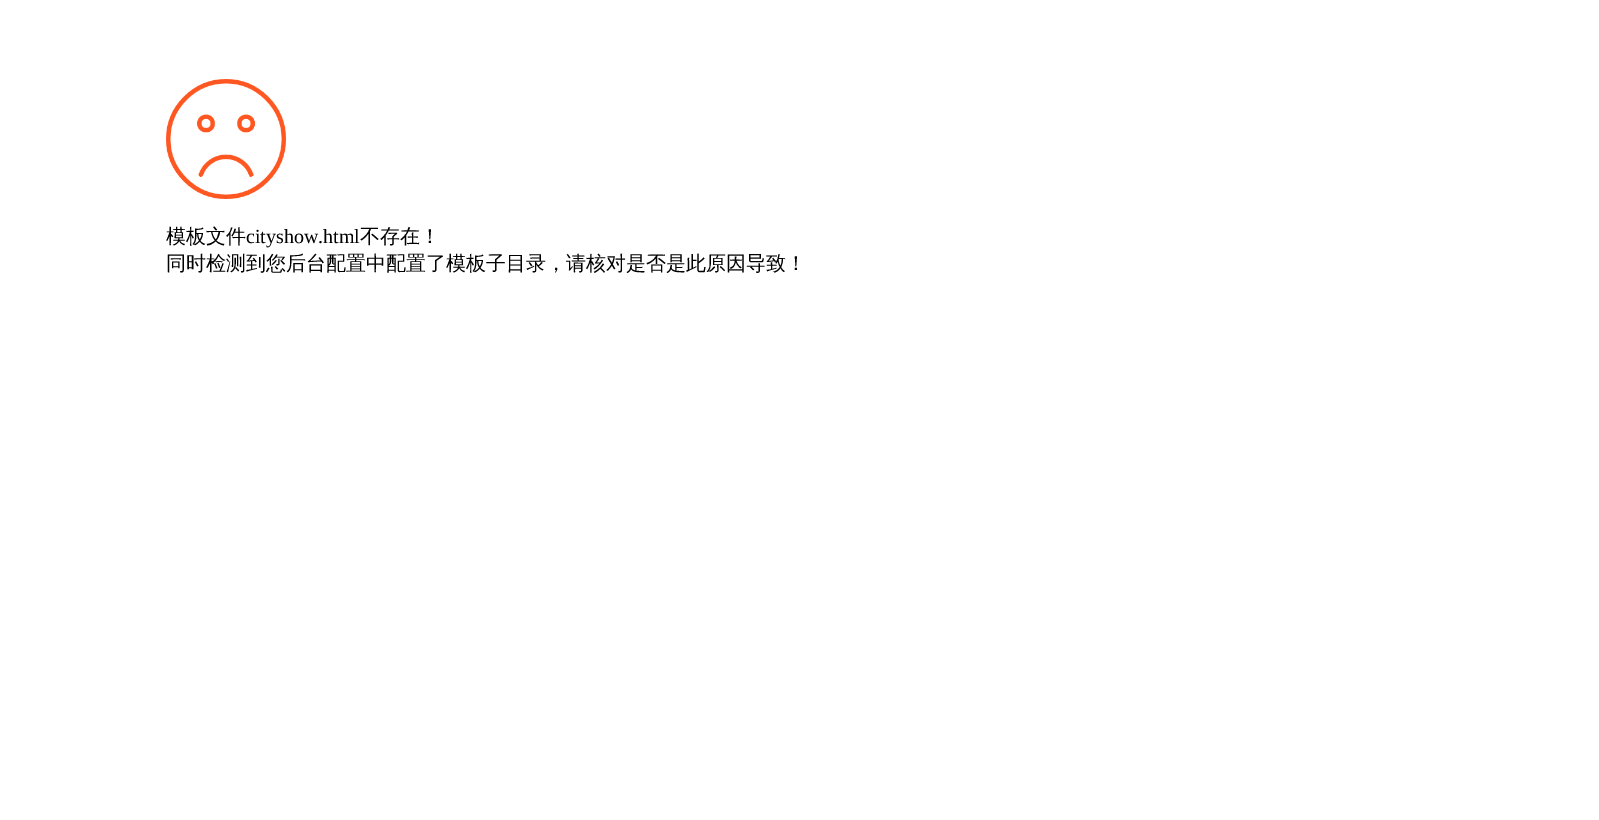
%!PS-Adobe-3.0
%%BoundingBox: 0 0 1599 820
%%LanguageLevel: 3
%%Pages: 1
%%EndComments
%%BeginProlog
/setink { 3 { 255 div 3 1 roll } repeat setrgbcolor } def
/usefont { [ exch dup neg 0 0 3 -1 roll 0 0 ] selectfont } def
/drawtext { setink usefont moveto show } def
/fillbox { setink rectfill } def
/drawimage { 5 dict begin { /h /w /y /x /name } { exch def } forall
  gsave x y translate w h scale
  w h 8 [w 0 0 h 0 0] name (r) file false 3 colorimage grestore end } def
%%EndProlog
%%BeginSetup
<< /PageSize [1599 820] >> setpagedevice
%%EndSetup
%%Page: 1 1
0 820 translate 1 -1 scale
4 setmiterlimit
0 0 1599 820 255 255 255 fillbox
(assets/img1.rgb) 166 79 120 120 drawimage
(模板文件) 166 243 /WenQuanYiZenHei-Medium 20 0 0 0 drawtext
(cityshow.html) 246 243 /LiberationSerif-Regular 20 0 0 0 drawtext
(不存在！) 360 243 /WenQuanYiZenHei-Medium 20 0 0 0 drawtext
(同时检测到您后台配置中配置了模板子目录，请核对是否是此原因导致！) 166 270 /WenQuanYiZenHei-Medium 20 0 0 0 drawtext
showpage
%%EOF
